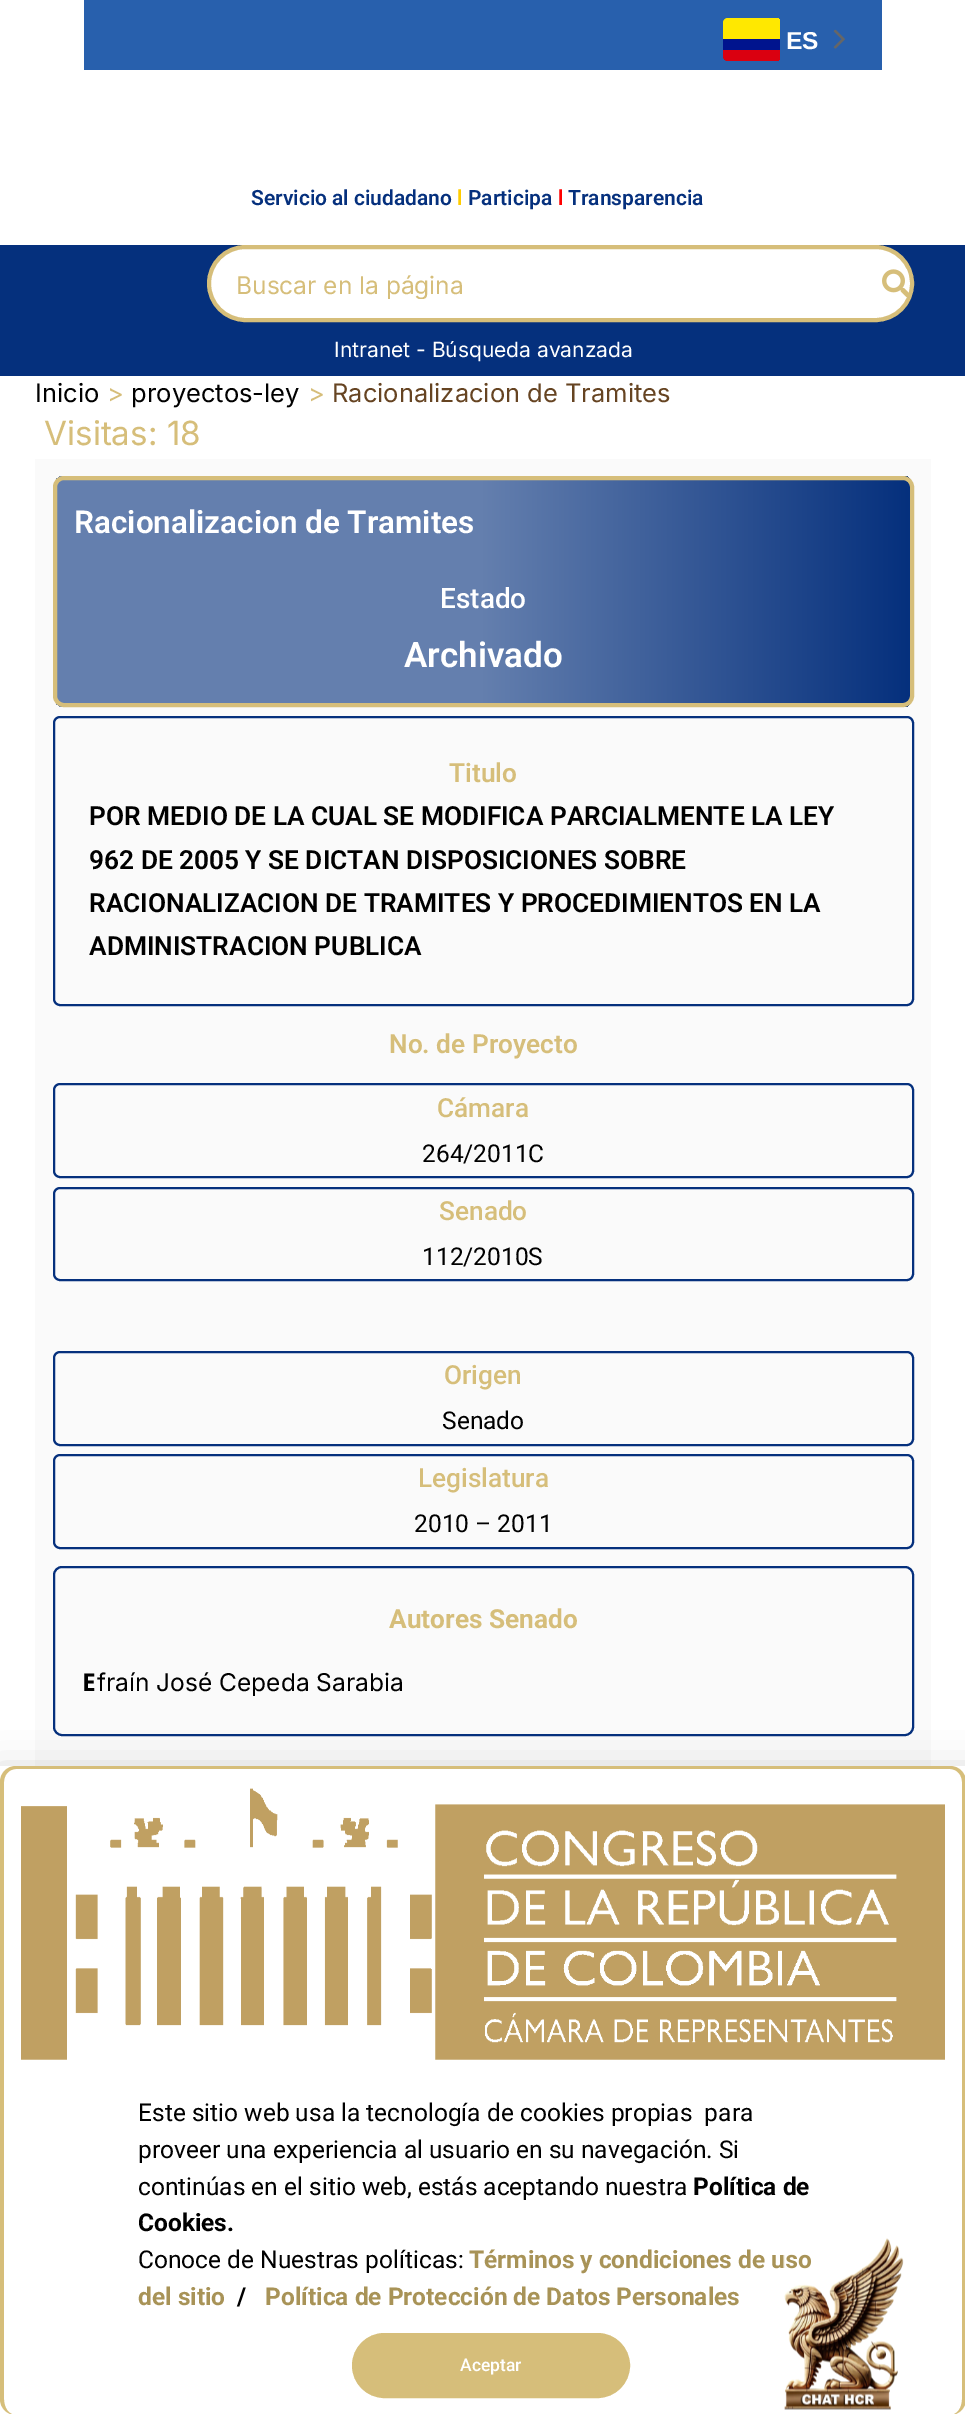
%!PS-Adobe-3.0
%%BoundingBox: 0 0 965 2414
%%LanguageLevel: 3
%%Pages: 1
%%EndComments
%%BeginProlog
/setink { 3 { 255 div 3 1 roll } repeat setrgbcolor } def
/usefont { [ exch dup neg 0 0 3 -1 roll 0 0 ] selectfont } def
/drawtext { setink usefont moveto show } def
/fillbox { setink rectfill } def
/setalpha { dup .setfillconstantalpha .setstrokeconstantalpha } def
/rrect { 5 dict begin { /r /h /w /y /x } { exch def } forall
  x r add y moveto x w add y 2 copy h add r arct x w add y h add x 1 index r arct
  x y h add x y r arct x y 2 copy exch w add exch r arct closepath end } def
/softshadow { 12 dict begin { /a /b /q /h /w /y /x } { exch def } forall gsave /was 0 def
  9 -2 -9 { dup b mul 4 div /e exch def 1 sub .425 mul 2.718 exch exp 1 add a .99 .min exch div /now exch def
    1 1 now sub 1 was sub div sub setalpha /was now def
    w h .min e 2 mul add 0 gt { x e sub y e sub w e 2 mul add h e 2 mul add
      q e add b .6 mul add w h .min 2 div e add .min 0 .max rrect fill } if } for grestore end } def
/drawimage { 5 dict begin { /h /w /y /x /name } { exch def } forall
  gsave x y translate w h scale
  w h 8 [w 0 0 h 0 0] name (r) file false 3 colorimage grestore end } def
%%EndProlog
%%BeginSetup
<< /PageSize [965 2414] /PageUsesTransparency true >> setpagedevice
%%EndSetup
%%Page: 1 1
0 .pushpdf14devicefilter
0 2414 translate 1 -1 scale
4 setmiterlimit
0 0 965 2414 255 255 255 fillbox
84 0 798 70 40 96 173 fillbox
gsave
723 18 58 43 5 rrect clip newpath
255 232 0 setink
728 18 moveto 780 18 lineto 780 61 lineto 728 61 lineto 725 61 723 59 723 56 curveto 723 23 lineto 723 20 725 18 728 18 curveto closepath fill
0 20 142 setink
723 39 moveto 780 39 lineto 780 61 lineto 728 61 lineto 725 61 723 59 723 56 curveto closepath fill
218 0 16 setink
723 50 moveto 780 50 lineto 780 61 lineto 728 61 lineto 725 61 723 59 723 56 curveto closepath fill
grestore
(ES) 786 49 /LiberationSans-Bold 24.5 255 255 255 drawtext
(assets/img1.rgb) 833 29 12 20 drawimage
(Servicio al ciudadano) 251 205 /Roboto-SemiBold 21 5 48 125 drawtext
(l) 457 205 /Roboto-SemiBold 21 255 204 0 drawtext
(Participa) 468 205 /Roboto-SemiBold 21 5 48 125 drawtext
(l) 558 205 /Roboto-SemiBold 21 255 0 0 drawtext
(Transparencia) 568 205 /Roboto-SemiBold 21 5 48 125 drawtext
0 245 965 131 5 48 125 fillbox
255 255 255 setink
209 247 703 73 36.5 rrect gsave fill grestore
214 190 122 setink
4 setlinewidth
stroke
gsave
236 270 658 29 rectclip
(Buscar en la página) 236 294 /Inter-Regular 24.5 214 190 122 drawtext
grestore
(assets/img2.rgb) 882 269 27 29 drawimage
(Intranet - Búsqueda avanzada) 334 357 /Inter-Regular 21 255 255 255 drawtext
(Inicio) 35 402 /Inter-Regular 25.5 0 0 0 drawtext
(>) 107 402 /Inter-Regular 25.5 214 190 122 drawtext
(proyectos-ley) 131 402 /Inter-Regular 25.5 0 0 0 drawtext
(>) 308 402 /Inter-Regular 25.5 214 190 122 drawtext
(Racionalizacion de Tramites) 332 402 /Inter-Regular 25.5 102 68 34 drawtext
(Visitas: 18) 44 445 /Inter-Regular 33.25 214 190 122 drawtext
35 459 896 1307 250 250 250 fillbox
gsave
53 476 861 231 11 rrect clip newpath
gsave 56 476 moveto 910 476 lineto 910 707 lineto 56 707 lineto closepath clip newpath
<< /ShadingType 2 /ColorSpace /DeviceRGB /Coords [56 592 910 592] /Extend [true true] /Function << /FunctionType 3 /Domain [0 1] /Functions [<< /FunctionType 2 /Domain [0 1] /C0 [0.392 0.498 0.682] /C1 [0.392 0.498 0.682] /N 1 >> << /FunctionType 2 /Domain [0 1] /C0 [0.392 0.498 0.682] /C1 [0.02 0.188 0.49] /N 1 >>] /Bounds [0.5] /Encode [0 1 0 1] >> >> shfill grestore
grestore
214 190 122 setink
55 478 857 227 9 rrect stroke
(Racionalizacion de Tramites) 74 533 /Roboto-SemiBold 31.5 255 255 255 drawtext
(Estado) 440 608 /Roboto-Medium 28 255 255 255 drawtext
(Archivado) 404 667 /Roboto-SemiBold 35 255 255 255 drawtext
5 48 125 setink
2 setlinewidth
54 717 859 288 6 rrect stroke
(Titulo) 449 782 /Roboto-SemiBold 26.25 214 190 122 drawtext
(POR MEDIO DE LA CUAL SE MODIFICA PARCIALMENTE LA LEY) 89 825 /Roboto-SemiBold 26.25 0 0 0 drawtext
(962 DE 2005 Y SE DICTAN DISPOSICIONES SOBRE) 89 869 /Roboto-SemiBold 26.25 0 0 0 drawtext
(RACIONALIZACION DE TRAMITES Y PROCEDIMIENTOS EN LA) 89 912 /Roboto-SemiBold 26.25 0 0 0 drawtext
(ADMINISTRACION PUBLICA) 89 955 /Roboto-SemiBold 26.25 0 0 0 drawtext
(No. de Proyecto) 389 1053 /Roboto-SemiBold 26.25 214 190 122 drawtext
5 48 125 setink
54 1084 859 93 6 rrect stroke
(Cámara) 437 1117 /Roboto-Medium 26.25 214 190 122 drawtext
(264/2011C) 422 1162 /Roboto-Regular 24.5 0 0 0 drawtext
5 48 125 setink
54 1188 859 92 6 rrect stroke
(Senado) 439 1220 /Roboto-Medium 26.25 214 190 122 drawtext
(112/2010S) 422 1265 /Roboto-Regular 24.5 0 0 0 drawtext
5 48 125 setink
54 1352 859 93 6 rrect stroke
(Origen) 444 1384 /Roboto-Medium 26.25 214 190 122 drawtext
(Senado) 442 1429 /Roboto-Regular 24.5 0 0 0 drawtext
5 48 125 setink
54 1455 859 93 6 rrect stroke
(Legislatura) 418 1487 /Roboto-Medium 26.25 214 190 122 drawtext
(2010 – 2011) 414 1532 /Roboto-Regular 24.5 0 0 0 drawtext
5 48 125 setink
54 1567 859 168 8 rrect stroke
(Autores Senado) 389 1628 /Roboto-Bold 26.25 214 190 122 drawtext
(E) 82 1691 /NotoSans-Bold 24.5 0 0 0 drawtext
(fraín José Cepeda Sarabia) 97 1691 /Inter-Regular 24.5 0 0 0 drawtext
-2 1775 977 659 0 20 0.2 softshadow
0 1766 965 648 255 255 255 fillbox
214 190 122 setink
16 1766 moveto 950 1766 lineto 959 1766 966 1773 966 1782 curveto 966 2399 lineto 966 2408 959 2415 950 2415 curveto 16 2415 lineto 7 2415 0 2408 0 2399 curveto 0 1782 lineto 0 1773 7 1766 16 1766 curveto closepath 16 1769 moveto 950 1769 lineto 957 1769 962 1775 962 1782 curveto 962 2399 lineto 962 2408 957 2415 950 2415 curveto 16 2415 lineto 9 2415 4 2408 4 2399 curveto 4 1782 lineto 4 1775 9 1769 16 1769 curveto closepath eofill
(assets/img3.rgb) 21 1788 924 272 drawimage
(Este sitio web usa la tecnología de cookies propias  para) 138 2121 /Roboto-Regular 24.5 0 0 0 drawtext
(proveer una experiencia al usuario en su navegación. Si) 138 2158 /Roboto-Regular 24.5 0 0 0 drawtext
(continúas en el sitio web, estás aceptando nuestra) 138 2195 /Roboto-Regular 24.5 0 0 0 drawtext
(Política de) 693 2195 /Roboto-Bold 24.5 0 0 0 drawtext
(Cookies.) 138 2231 /Roboto-Bold 24.5 0 0 0 drawtext
(Conoce de Nuestras políticas:) 138 2268 /Roboto-Regular 24.5 0 0 0 drawtext
(Términos y condiciones de uso) 469 2268 /Roboto-Bold 24.5 168 147 87 drawtext
(del sitio) 138 2305 /Roboto-Bold 24.5 168 147 87 drawtext
(/) 237 2305 /Roboto-Bold 24.5 0 0 0 drawtext
(Política de Protección de Datos Personales) 265 2305 /Roboto-Bold 24.5 168 147 87 drawtext
214 190 122 setink
354 2335 274 61 30.5 rrect gsave fill grestore
4 setlinewidth
stroke
(Aceptar) 460 2371 /Roboto-Medium 17.5 255 255 255 drawtext
(assets/img4.rgb) 784 2238 120 172 drawimage
.poppdf14devicefilter showpage
%%EOF
